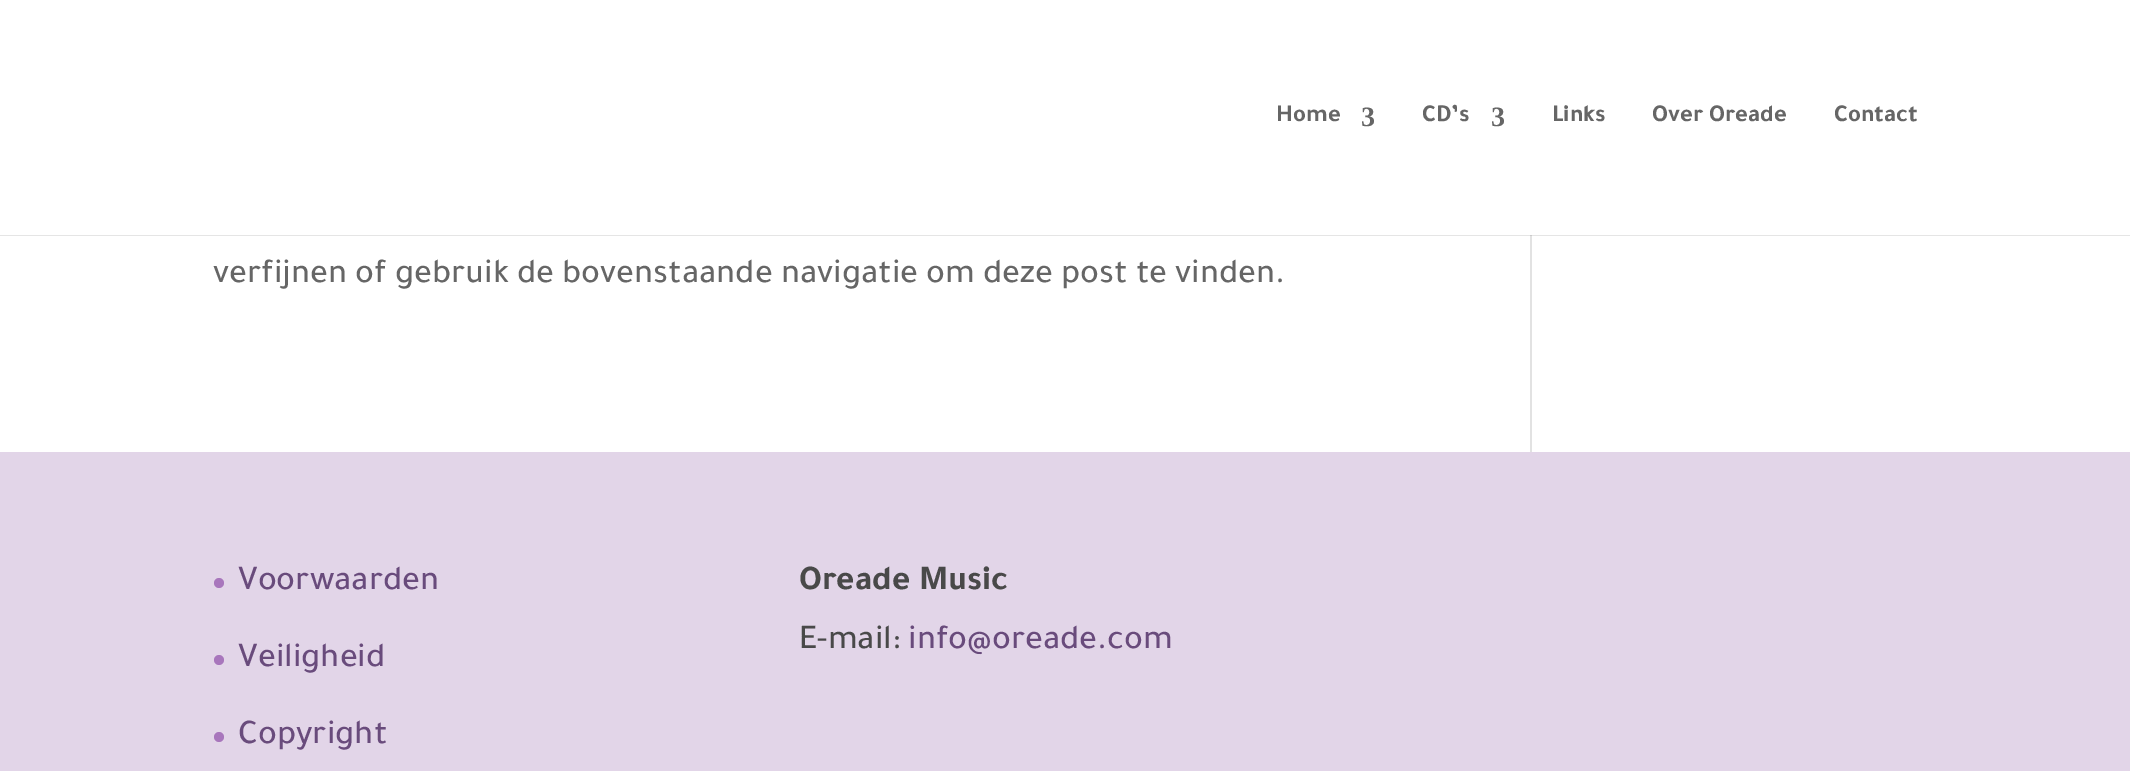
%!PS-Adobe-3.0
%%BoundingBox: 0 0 2130 771
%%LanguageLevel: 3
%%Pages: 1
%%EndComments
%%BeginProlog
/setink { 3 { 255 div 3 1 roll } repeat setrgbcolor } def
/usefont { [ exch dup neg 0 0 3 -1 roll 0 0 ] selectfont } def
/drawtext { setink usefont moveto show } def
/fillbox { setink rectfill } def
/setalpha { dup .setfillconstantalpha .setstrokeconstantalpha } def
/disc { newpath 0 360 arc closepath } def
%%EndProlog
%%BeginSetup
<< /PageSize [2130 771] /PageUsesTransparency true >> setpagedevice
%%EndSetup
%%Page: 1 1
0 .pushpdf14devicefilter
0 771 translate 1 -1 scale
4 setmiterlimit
0 0 2130 771 255 255 255 fillbox
1530 235 2 217 226 226 226 fillbox
0.1 setalpha
0 0 0 setink
0 234 moveto 0 236 lineto 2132 236 lineto 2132 2 lineto 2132 234 lineto closepath fill
1 setalpha
0 234 2130 1 255 255 255 fillbox
(Home) 1276 121 /Tajawal-Bold 24.5 102 102 102 drawtext
(3) 1361 126 /LiberationSerif-Bold 28 102 102 102 drawtext
(CD’s) 1422 121 /Tajawal-Bold 24.5 102 102 102 drawtext
(3) 1491 126 /LiberationSerif-Bold 28 102 102 102 drawtext
(Links) 1552 121 /Tajawal-Bold 24.5 102 102 102 drawtext
(Over Oreade) 1652 121 /Tajawal-Bold 24.5 102 102 102 drawtext
(Contact) 1834 121 /Tajawal-Bold 24.5 102 102 102 drawtext
(verfijnen of gebruik de bovenstaande navigatie om deze post te vinden.) 213 282 /Tajawal-Medium 35 102 102 102 drawtext
0 452 2130 319 226 213 232 fillbox
168 118 188 setink
219 583 5 disc fill
(Voorwaarden) 238 589 /Tajawal-Medium 35 105 75 124 drawtext
168 118 188 setink
219 660 5 disc fill
(Veiligheid) 238 666 /Tajawal-Medium 35 105 75 124 drawtext
168 118 188 setink
219 737 5 disc fill
(Copyright) 238 743 /Tajawal-Medium 35 105 75 124 drawtext
(Oreade Music) 799 589 /Tajawal-Bold 35 73 73 73 drawtext
(E-mail:) 799 648 /Tajawal-Medium 35 73 73 73 drawtext
(info@oreade.com) 908 648 /Tajawal-Medium 35 105 75 124 drawtext
.poppdf14devicefilter showpage
%%EOF
